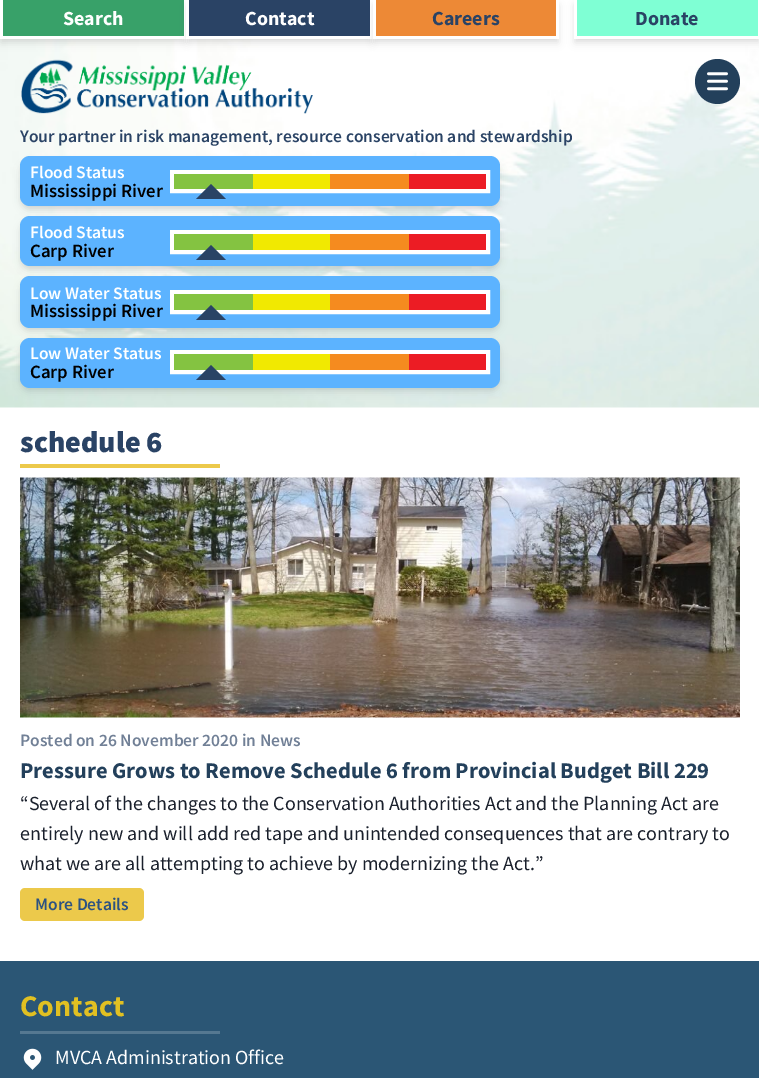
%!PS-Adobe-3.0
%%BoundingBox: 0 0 759 1078
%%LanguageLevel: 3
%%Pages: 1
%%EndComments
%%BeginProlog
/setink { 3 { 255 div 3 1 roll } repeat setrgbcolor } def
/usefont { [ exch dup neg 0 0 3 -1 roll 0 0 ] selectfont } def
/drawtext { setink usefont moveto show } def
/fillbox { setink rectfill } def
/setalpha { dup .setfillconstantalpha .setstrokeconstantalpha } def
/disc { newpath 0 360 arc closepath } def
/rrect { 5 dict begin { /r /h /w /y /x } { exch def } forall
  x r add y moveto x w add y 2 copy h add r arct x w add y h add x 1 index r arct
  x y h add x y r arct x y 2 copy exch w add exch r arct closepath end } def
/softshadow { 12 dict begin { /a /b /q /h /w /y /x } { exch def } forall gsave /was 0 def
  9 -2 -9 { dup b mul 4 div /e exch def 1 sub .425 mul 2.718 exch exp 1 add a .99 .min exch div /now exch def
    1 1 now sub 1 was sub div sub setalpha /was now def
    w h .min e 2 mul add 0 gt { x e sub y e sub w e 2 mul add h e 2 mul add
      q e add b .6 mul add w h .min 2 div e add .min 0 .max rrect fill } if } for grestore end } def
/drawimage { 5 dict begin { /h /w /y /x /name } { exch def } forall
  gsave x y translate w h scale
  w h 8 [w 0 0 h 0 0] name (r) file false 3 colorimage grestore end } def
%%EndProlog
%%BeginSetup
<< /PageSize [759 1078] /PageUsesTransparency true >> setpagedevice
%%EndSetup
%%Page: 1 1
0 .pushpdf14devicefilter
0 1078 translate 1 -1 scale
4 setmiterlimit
0 0 759 1078 255 255 255 fillbox
(assets/img1.rgb) 0 0 759 408 drawimage
0 0 0 setink
1 4 184 36 0 2.5 0.06 softshadow
1 6 184 37 0 4 0.1 softshadow
3 0 181 36 56 161 105 fillbox
184 0 2 39 255 255 255 fillbox
0 36 186 3 255 255 255 fillbox
0 0 3 39 255 255 255 fillbox
(Search) 63 25 /SourceSansPro-Bold 20 255 255 255 drawtext
0 0 0 setink
188 4 183 36 0 2.5 0.06 softshadow
188 6 183 37 0 4 0.1 softshadow
189 0 181 36 42 67 101 fillbox
370 0 3 39 255 255 255 fillbox
186 36 187 3 255 255 255 fillbox
186 0 3 39 255 255 255 fillbox
(Contact) 245 25 /SourceSansPro-Bold 20 255 255 255 drawtext
0 0 0 setink
374 4 184 36 0 2.5 0.06 softshadow
374 6 184 37 0 4 0.1 softshadow
376 0 180 36 237 137 54 fillbox
556 0 3 39 255 255 255 fillbox
373 36 186 3 255 255 255 fillbox
373 0 3 39 255 255 255 fillbox
(Careers) 432 25 /SourceSansPro-Bold 20 42 67 101 drawtext
0 0 0 setink
575 4 184 36 0 2.5 0.06 softshadow
575 6 184 37 0 4 0.1 softshadow
577 0 181 36 127 255 212 fillbox
758 0 1 39 255 255 255 fillbox
574 36 185 3 255 255 255 fillbox
574 0 3 39 255 255 255 fillbox
(Donate) 635 25 /SourceSansPro-Bold 20 42 67 101 drawtext
35 64 91 setink
717.5 81.5 22.5 disc fill
(assets/img2.rgb) 707 72 21 19 drawimage
(assets/img3.rgb) 21 59 292 55 drawimage
(Your partner in risk management, resource conservation and stewardship) 20 142 /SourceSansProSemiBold-SemiBold 17.5 42 67 101 drawtext
0 0 0 setink
21 160 478 48 9 2.5 0.06 softshadow
21 163 478 47 9 4 0.1 softshadow
92 179 255 setink
20 156 480 50 10 rrect fill
(Flood Status) 30 178 /SourceSansProSemiBold-SemiBold 17.5 255 255 255 drawtext
(Mississippi River) 30 197 /SourceSansProSemiBold-SemiBold 18.75 0 0 0 drawtext
255 255 255 setink
4 setlinewidth
172 172 316 19 rectstroke
174 174 79 15 132 195 65 fillbox
253 174 77 15 241 233 1 fillbox
330 174 79 15 245 139 31 fillbox
409 174 77 15 236 28 36 fillbox
42 67 101 setink
226 199 moveto 196 199 lineto 211 184 lineto closepath fill
0 0 0 setink
21 220 478 48 9 2.5 0.06 softshadow
21 223 478 47 9 4 0.1 softshadow
92 179 255 setink
20 216 480 50 10 rrect fill
(Flood Status) 30 238 /SourceSansProSemiBold-SemiBold 17.5 255 255 255 drawtext
(Carp River) 30 257 /SourceSansProSemiBold-SemiBold 18.75 0 0 0 drawtext
255 255 255 setink
172 232 316 20 rectstroke
174 234 79 16 132 195 65 fillbox
253 234 77 16 241 233 1 fillbox
330 234 79 16 245 139 31 fillbox
409 234 77 16 236 28 36 fillbox
42 67 101 setink
226 260 moveto 196 260 lineto 211 245 lineto closepath fill
0 0 0 setink
21 280 478 49 9 2.5 0.06 softshadow
21 283 478 48 9 4 0.1 softshadow
92 179 255 setink
20 276 480 52 10 rrect fill
(Low Water Status) 30 299 /SourceSansProSemiBold-SemiBold 17.5 255 255 255 drawtext
(Mississippi River) 30 317 /SourceSansProSemiBold-SemiBold 18.75 0 0 0 drawtext
255 255 255 setink
172 292 316 20 rectstroke
174 294 79 16 132 195 65 fillbox
253 294 77 16 241 233 1 fillbox
330 294 79 16 245 139 31 fillbox
409 294 77 16 236 28 36 fillbox
42 67 101 setink
226 320 moveto 196 320 lineto 211 305 lineto closepath fill
0 0 0 setink
21 341 478 48 9 2.5 0.06 softshadow
21 344 478 47 9 4 0.1 softshadow
92 179 255 setink
20 338 480 50 10 rrect fill
(Low Water Status) 30 359 /SourceSansProSemiBold-SemiBold 17.5 255 255 255 drawtext
(Carp River) 30 378 /SourceSansProSemiBold-SemiBold 18.75 0 0 0 drawtext
255 255 255 setink
172 352 316 20 rectstroke
174 354 79 16 132 195 65 fillbox
253 354 77 16 241 233 1 fillbox
330 354 79 16 245 139 31 fillbox
409 354 77 16 236 28 36 fillbox
42 67 101 setink
226 380 moveto 196 380 lineto 211 365 lineto closepath fill
(schedule 6) 20 452 /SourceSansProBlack-Black 30 42 67 101 drawtext
20 464 200 4 236 201 75 fillbox
(assets/img4.rgb) 20 477 720 241 drawimage
(Posted on 26 November 2020 in News) 20 746 /SourceSansProSemiBold-SemiBold 17.5 113 128 150 drawtext
(Pressure Grows to Remove Schedule 6 from Provincial Budget Bill 229) 20 778 /SourceSansPro-Bold 22.5 35 64 91 drawtext
(“Several of the changes to the Conservation Authorities Act and the Planning Act are) 20 810 /SourceSansPro-Regular 20 26 32 44 drawtext
(entirely new and will add red tape and unintended consequences that are contrary to) 20 840 /SourceSansPro-Regular 20 26 32 44 drawtext
(what we are all attempting to achieve by modernizing the Act.”) 20 870 /SourceSansPro-Regular 20 26 32 44 drawtext
236 201 75 setink
20 888 124 33 5 rrect fill
(More Details) 35 910 /SourceSansProSemiBold-SemiBold 17.5 44 82 130 drawtext
0 961 759 117 43 86 117 fillbox
(Contact) 20 1016 /SourceSansPro-Bold 30 225 192 34 drawtext
20 1031 200 3 85 120 145 fillbox
(assets/img5.rgb) 23 1048 19 22 drawimage
(MVCA Administration Office) 55 1064 /SourceSansPro-Regular 20 255 255 255 drawtext
.poppdf14devicefilter showpage
%%EOF
